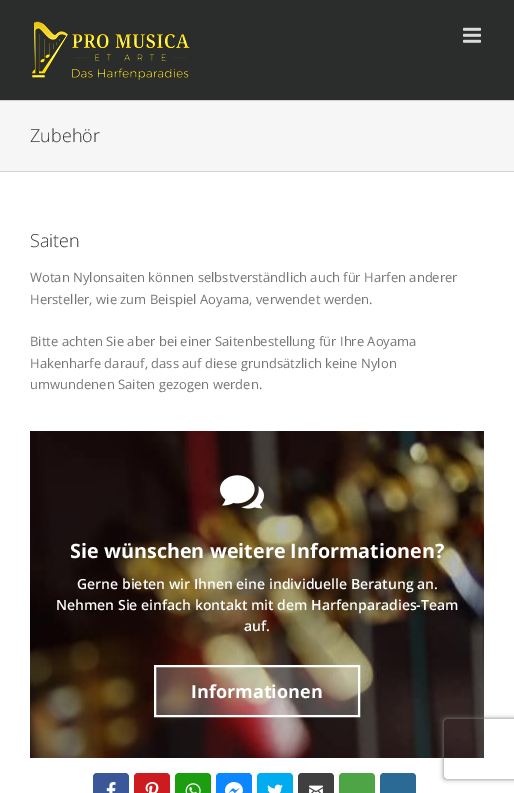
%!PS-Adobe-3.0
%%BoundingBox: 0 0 514 793
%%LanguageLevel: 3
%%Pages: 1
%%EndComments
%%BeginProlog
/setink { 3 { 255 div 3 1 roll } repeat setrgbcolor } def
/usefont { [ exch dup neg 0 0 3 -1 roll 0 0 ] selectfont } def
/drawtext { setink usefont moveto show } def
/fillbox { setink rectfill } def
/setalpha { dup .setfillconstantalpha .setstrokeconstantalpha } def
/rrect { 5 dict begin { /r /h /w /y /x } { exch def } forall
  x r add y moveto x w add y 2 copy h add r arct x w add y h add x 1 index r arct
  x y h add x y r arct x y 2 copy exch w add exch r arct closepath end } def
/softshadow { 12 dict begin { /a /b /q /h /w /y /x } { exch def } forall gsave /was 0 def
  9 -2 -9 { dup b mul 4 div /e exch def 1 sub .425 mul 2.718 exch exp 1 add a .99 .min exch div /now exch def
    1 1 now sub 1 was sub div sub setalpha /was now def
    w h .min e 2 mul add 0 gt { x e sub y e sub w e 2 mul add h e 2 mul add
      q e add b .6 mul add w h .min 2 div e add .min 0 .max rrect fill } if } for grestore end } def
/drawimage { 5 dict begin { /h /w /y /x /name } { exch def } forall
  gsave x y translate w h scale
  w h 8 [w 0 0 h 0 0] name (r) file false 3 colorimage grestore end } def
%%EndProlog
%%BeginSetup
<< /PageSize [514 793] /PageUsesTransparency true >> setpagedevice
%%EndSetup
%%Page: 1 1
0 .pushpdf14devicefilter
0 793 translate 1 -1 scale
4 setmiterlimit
0 0 514 793 246 246 246 fillbox
0 0 514 100 43 45 45 fillbox
(assets/img1.rgb) 32 21 158 59 drawimage
(assets/img2.rgb) 463 27 18 16 drawimage
0 100 514 1 210 211 212 fillbox
0 171 514 1 210 211 212 fillbox
(Zubehör) 30 142 /OpenSans-Light 18 51 51 51 drawtext
0 172 514 621 255 255 255 fillbox
(Saiten) 30 247 /OpenSans-Light 18 51 51 51 drawtext
(Wotan Nylonsaiten können selbstverständlich auch für Harfen anderer) 30 282 /OpenSans-Regular 13 116 116 116 drawtext
(Hersteller, wie zum Beispiel Aoyama, verwendet werden.) 30 304 /OpenSans-Regular 13 116 116 116 drawtext
(Bitte achten Sie aber bei einer Saitenbestellung für Ihre Aoyama) 30 346 /OpenSans-Regular 13 116 116 116 drawtext
(Hakenharfe darauf, dass auf diese grundsätzlich keine Nylon) 30 368 /OpenSans-Regular 13 116 116 116 drawtext
(umwundenen Saiten gezogen werden.) 30 389 /OpenSans-Regular 13 116 116 116 drawtext
(assets/img3.rgb) 30 431 454 327 drawimage
(assets/img4.rgb) 220 475 44 34 drawimage
(Sie wünschen weitere Informationen?) 70 558 /OpenSans-Bold 19.8 255 255 255 drawtext
(Gerne bieten wir Ihnen eine individuelle Beratung an.) 77 589 /OpenSans-SemiBold 14 255 255 255 drawtext
(Nehmen Sie einfach kontakt mit dem Harfenparadies-Team) 56 610 /OpenSans-SemiBold 14 255 255 255 drawtext
(auf.) 244 631 /OpenSans-SemiBold 14 255 255 255 drawtext
0.23 setalpha
155 666 moveto 359 666 lineto 359 716 lineto 155 716 lineto closepath fill
1 setalpha
2 setlinewidth
155 666 moveto 359 666 lineto 359 716 lineto 155 716 lineto closepath stroke
(Informationen) 191 698 /OpenSans-Bold 18 255 255 255 drawtext
58 87 154 setink
93 773 36 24 4 rrect fill
(assets/img5.rgb) 106 782 10 11 drawimage
205 28 31 setink
134 773 36 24 4 rrect fill
(assets/img6.rgb) 145 782 14 11 drawimage
29 158 17 setink
175 773 36 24 4 rrect fill
(assets/img7.rgb) 185 783 16 10 drawimage
13 135 255 setink
216 773 36 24 4 rrect fill
(*) 225 800 /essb-Regular 18 255 255 255 drawtext
0 171 240 setink
257 773 36 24 4 rrect fill
(assets/img8.rgb) 267 784 16 9 drawimage
64 64 64 setink
298 773 36 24 4 rrect fill
(assets/img9.rgb) 309 785 14 8 drawimage
78 165 70 setink
339 773 36 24 4 rrect fill
43 106 148 setink
380 773 36 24 4 rrect fill
gsave
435 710 moveto 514 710 lineto 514 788 lineto 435 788 lineto closepath 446 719 moveto 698 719 lineto 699 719 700 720 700 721 curveto 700 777 lineto 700 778 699 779 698 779 curveto 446 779 lineto 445 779 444 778 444 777 curveto 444 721 lineto 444 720 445 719 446 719 curveto closepath eoclip newpath
128 128 128 setink
444 719 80 60 2 2.5 1 softshadow
grestore
.poppdf14devicefilter showpage
%%EOF
